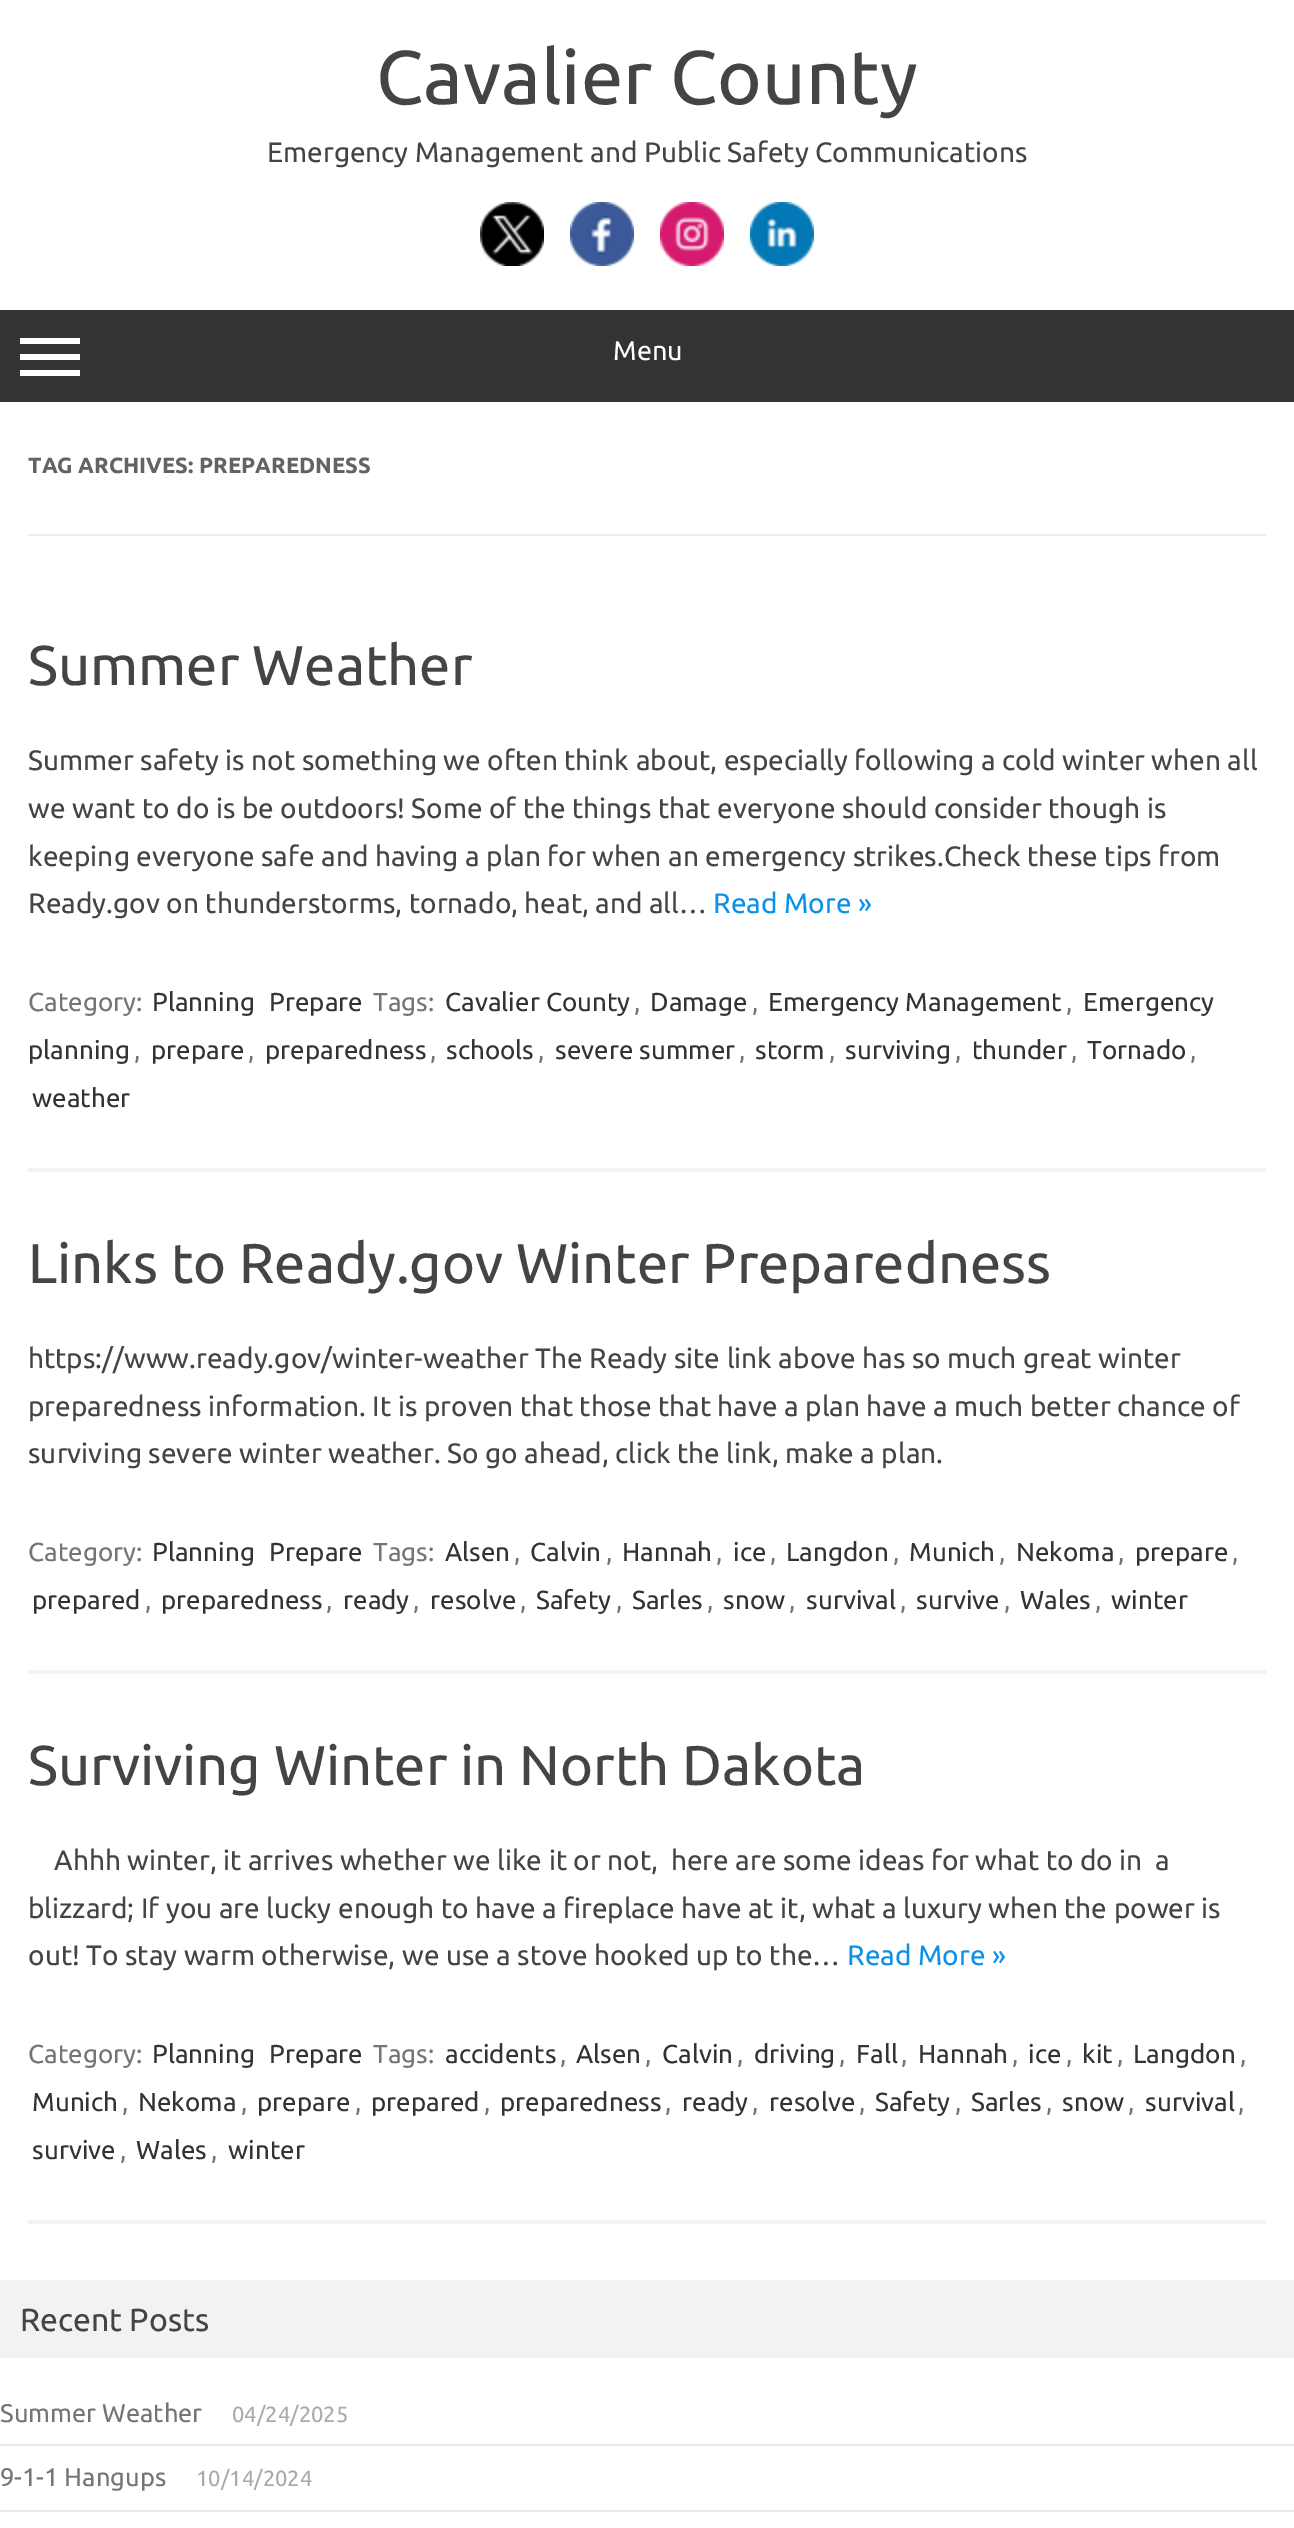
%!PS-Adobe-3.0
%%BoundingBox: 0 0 1294 2528
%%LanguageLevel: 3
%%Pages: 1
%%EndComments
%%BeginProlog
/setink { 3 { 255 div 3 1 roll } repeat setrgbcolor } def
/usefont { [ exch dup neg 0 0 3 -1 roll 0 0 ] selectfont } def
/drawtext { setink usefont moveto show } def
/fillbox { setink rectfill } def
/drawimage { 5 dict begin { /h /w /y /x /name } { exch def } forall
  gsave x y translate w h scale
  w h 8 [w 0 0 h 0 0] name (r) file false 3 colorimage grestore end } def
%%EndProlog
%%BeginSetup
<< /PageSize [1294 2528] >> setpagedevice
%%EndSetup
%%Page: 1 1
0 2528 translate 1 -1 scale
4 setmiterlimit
0 0 1294 2528 255 255 255 fillbox
(Cavalier County) 376 104 /Ubuntu-Regular 76 68 68 68 drawtext
(Emergency Management and Public Safety Communications) 267 162 /Ubuntu-Regular 28 68 68 68 drawtext
(assets/img1.rgb) 480 202 64 64 drawimage
(assets/img2.rgb) 570 202 64 64 drawimage
(assets/img3.rgb) 660 202 64 64 drawimage
(assets/img4.rgb) 750 202 64 64 drawimage
0 310 1294 92 51 51 51 fillbox
20 338 60 6 255 255 255 fillbox
20 354 60 6 255 255 255 fillbox
20 370 60 6 255 255 255 fillbox
(Menu) 613 360 /Ubuntu-Regular 27 255 255 255 drawtext
28 534 1238 2 237 237 237 fillbox
(TAG ARCHIVES: PREPAREDNESS) 28 473 /Ubuntu-Bold 22 99 99 99 drawtext
28 1168 1238 4 243 243 243 fillbox
(Summer Weather) 28 685 /Ubuntu-Regular 56 68 68 68 drawtext
(Summer safety is not something we often think about, especially following a cold winter when all) 28 770 /Ubuntu-Regular 28 68 68 68 drawtext
(we want to do is be outdoors! Some of the things that everyone should consider though is) 28 818 /Ubuntu-Regular 28 68 68 68 drawtext
(keeping everyone safe and having a plan for when an emergency strikes.Check these tips from) 28 866 /Ubuntu-Regular 28 68 68 68 drawtext
(Ready.gov on thunderstorms, tornado, heat, and all…) 28 913 /Ubuntu-Regular 28 68 68 68 drawtext
(Read More ») 713 913 /Ubuntu-Regular 28 11 145 234 drawtext
(Category:) 28 1011 /Ubuntu-Regular 26 117 117 117 drawtext
(Planning) 152 1011 /Ubuntu-Regular 26 51 51 51 drawtext
(Prepare) 269 1011 /Ubuntu-Regular 26 51 51 51 drawtext
(Tags:) 373 1011 /Ubuntu-Regular 26 117 117 117 drawtext
(Cavalier County) 445 1011 /Ubuntu-Regular 26 51 51 51 drawtext
(,) 634 1011 /Ubuntu-Regular 26 117 117 117 drawtext
(Damage) 650 1011 /Ubuntu-Regular 26 51 51 51 drawtext
(,) 752 1011 /Ubuntu-Regular 26 117 117 117 drawtext
(Emergency Management) 768 1011 /Ubuntu-Regular 26 51 51 51 drawtext
(,) 1066 1011 /Ubuntu-Regular 26 117 117 117 drawtext
(Emergency) 1083 1011 /Ubuntu-Regular 26 51 51 51 drawtext
(planning) 28 1059 /Ubuntu-Regular 26 51 51 51 drawtext
(,) 134 1059 /Ubuntu-Regular 26 117 117 117 drawtext
(prepare) 151 1059 /Ubuntu-Regular 26 51 51 51 drawtext
(,) 248 1059 /Ubuntu-Regular 26 117 117 117 drawtext
(preparedness) 265 1059 /Ubuntu-Regular 26 51 51 51 drawtext
(,) 430 1059 /Ubuntu-Regular 26 117 117 117 drawtext
(schools) 446 1059 /Ubuntu-Regular 26 51 51 51 drawtext
(,) 538 1059 /Ubuntu-Regular 26 117 117 117 drawtext
(severe summer) 555 1059 /Ubuntu-Regular 26 51 51 51 drawtext
(,) 739 1059 /Ubuntu-Regular 26 117 117 117 drawtext
(storm) 755 1059 /Ubuntu-Regular 26 51 51 51 drawtext
(,) 829 1059 /Ubuntu-Regular 26 117 117 117 drawtext
(surviving) 845 1059 /Ubuntu-Regular 26 51 51 51 drawtext
(,) 955 1059 /Ubuntu-Regular 26 117 117 117 drawtext
(thunder) 972 1059 /Ubuntu-Regular 26 51 51 51 drawtext
(,) 1071 1059 /Ubuntu-Regular 26 117 117 117 drawtext
(Tornado) 1087 1059 /Ubuntu-Regular 26 51 51 51 drawtext
(,) 1190 1059 /Ubuntu-Regular 26 117 117 117 drawtext
(weather) 32 1107 /Ubuntu-Regular 26 51 51 51 drawtext
28 1670 1238 4 243 243 243 fillbox
(Links to Ready.gov Winter Preparedness) 28 1283 /Ubuntu-Regular 56 68 68 68 drawtext
(https://www.ready.gov/winter-weather The Ready site link above has so much great winter) 28 1368 /Ubuntu-Regular 28 68 68 68 drawtext
(preparedness information. It is proven that those that have a plan have a much better chance of) 28 1416 /Ubuntu-Regular 28 68 68 68 drawtext
(surviving severe winter weather. So go ahead, click the link, make a plan.) 28 1463 /Ubuntu-Regular 28 68 68 68 drawtext
(Category:) 28 1561 /Ubuntu-Regular 26 117 117 117 drawtext
(Planning) 152 1561 /Ubuntu-Regular 26 51 51 51 drawtext
(Prepare) 269 1561 /Ubuntu-Regular 26 51 51 51 drawtext
(Tags:) 373 1561 /Ubuntu-Regular 26 117 117 117 drawtext
(Alsen) 445 1561 /Ubuntu-Regular 26 51 51 51 drawtext
(,) 514 1561 /Ubuntu-Regular 26 117 117 117 drawtext
(Calvin) 530 1561 /Ubuntu-Regular 26 51 51 51 drawtext
(,) 606 1561 /Ubuntu-Regular 26 117 117 117 drawtext
(Hannah) 622 1561 /Ubuntu-Regular 26 51 51 51 drawtext
(,) 716 1561 /Ubuntu-Regular 26 117 117 117 drawtext
(ice) 733 1561 /Ubuntu-Regular 26 51 51 51 drawtext
(,) 770 1561 /Ubuntu-Regular 26 117 117 117 drawtext
(Langdon) 786 1561 /Ubuntu-Regular 26 51 51 51 drawtext
(,) 893 1561 /Ubuntu-Regular 26 117 117 117 drawtext
(Munich) 909 1561 /Ubuntu-Regular 26 51 51 51 drawtext
(,) 999 1561 /Ubuntu-Regular 26 117 117 117 drawtext
(Nekoma) 1016 1561 /Ubuntu-Regular 26 51 51 51 drawtext
(,) 1118 1561 /Ubuntu-Regular 26 117 117 117 drawtext
(prepare) 1135 1561 /Ubuntu-Regular 26 51 51 51 drawtext
(,) 1232 1561 /Ubuntu-Regular 26 117 117 117 drawtext
(prepared) 32 1609 /Ubuntu-Regular 26 51 51 51 drawtext
(,) 145 1609 /Ubuntu-Regular 26 117 117 117 drawtext
(preparedness) 161 1609 /Ubuntu-Regular 26 51 51 51 drawtext
(,) 326 1609 /Ubuntu-Regular 26 117 117 117 drawtext
(ready) 343 1609 /Ubuntu-Regular 26 51 51 51 drawtext
(,) 413 1609 /Ubuntu-Regular 26 117 117 117 drawtext
(resolve) 430 1609 /Ubuntu-Regular 26 51 51 51 drawtext
(,) 520 1609 /Ubuntu-Regular 26 117 117 117 drawtext
(Safety) 536 1609 /Ubuntu-Regular 26 51 51 51 drawtext
(,) 616 1609 /Ubuntu-Regular 26 117 117 117 drawtext
(Sarles) 632 1609 /Ubuntu-Regular 26 51 51 51 drawtext
(,) 707 1609 /Ubuntu-Regular 26 117 117 117 drawtext
(snow) 723 1609 /Ubuntu-Regular 26 51 51 51 drawtext
(,) 789 1609 /Ubuntu-Regular 26 117 117 117 drawtext
(survival) 806 1609 /Ubuntu-Regular 26 51 51 51 drawtext
(,) 900 1609 /Ubuntu-Regular 26 117 117 117 drawtext
(survive) 916 1609 /Ubuntu-Regular 26 51 51 51 drawtext
(,) 1004 1609 /Ubuntu-Regular 26 117 117 117 drawtext
(Wales) 1020 1609 /Ubuntu-Regular 26 51 51 51 drawtext
(,) 1095 1609 /Ubuntu-Regular 26 117 117 117 drawtext
(winter) 1111 1609 /Ubuntu-Regular 26 51 51 51 drawtext
28 2220 1238 4 243 243 243 fillbox
(Surviving Winter in North Dakota) 28 1785 /Ubuntu-Regular 56 68 68 68 drawtext
(Ahhh winter, it arrives whether we like it or not,  here are some ideas for what to do in  a) 54 1870 /Ubuntu-Regular 28 68 68 68 drawtext
(blizzard; If you are lucky enough to have a fireplace have at it, what a luxury when the power is) 28 1918 /Ubuntu-Regular 28 68 68 68 drawtext
(out! To stay warm otherwise, we use a stove hooked up to the…) 28 1965 /Ubuntu-Regular 28 68 68 68 drawtext
(Read More ») 847 1965 /Ubuntu-Regular 28 11 145 234 drawtext
(Category:) 28 2063 /Ubuntu-Regular 26 117 117 117 drawtext
(Planning) 152 2063 /Ubuntu-Regular 26 51 51 51 drawtext
(Prepare) 269 2063 /Ubuntu-Regular 26 51 51 51 drawtext
(Tags:) 373 2063 /Ubuntu-Regular 26 117 117 117 drawtext
(accidents) 445 2063 /Ubuntu-Regular 26 51 51 51 drawtext
(,) 560 2063 /Ubuntu-Regular 26 117 117 117 drawtext
(Alsen) 576 2063 /Ubuntu-Regular 26 51 51 51 drawtext
(,) 645 2063 /Ubuntu-Regular 26 117 117 117 drawtext
(Calvin) 662 2063 /Ubuntu-Regular 26 51 51 51 drawtext
(,) 737 2063 /Ubuntu-Regular 26 117 117 117 drawtext
(driving) 754 2063 /Ubuntu-Regular 26 51 51 51 drawtext
(,) 839 2063 /Ubuntu-Regular 26 117 117 117 drawtext
(Fall) 856 2063 /Ubuntu-Regular 26 51 51 51 drawtext
(,) 901 2063 /Ubuntu-Regular 26 117 117 117 drawtext
(Hannah) 918 2063 /Ubuntu-Regular 26 51 51 51 drawtext
(,) 1012 2063 /Ubuntu-Regular 26 117 117 117 drawtext
(ice) 1028 2063 /Ubuntu-Regular 26 51 51 51 drawtext
(,) 1066 2063 /Ubuntu-Regular 26 117 117 117 drawtext
(kit) 1082 2063 /Ubuntu-Regular 26 51 51 51 drawtext
(,) 1117 2063 /Ubuntu-Regular 26 117 117 117 drawtext
(Langdon) 1133 2063 /Ubuntu-Regular 26 51 51 51 drawtext
(,) 1240 2063 /Ubuntu-Regular 26 117 117 117 drawtext
(Munich) 32 2111 /Ubuntu-Regular 26 51 51 51 drawtext
(,) 122 2111 /Ubuntu-Regular 26 117 117 117 drawtext
(Nekoma) 138 2111 /Ubuntu-Regular 26 51 51 51 drawtext
(,) 241 2111 /Ubuntu-Regular 26 117 117 117 drawtext
(prepare) 257 2111 /Ubuntu-Regular 26 51 51 51 drawtext
(,) 355 2111 /Ubuntu-Regular 26 117 117 117 drawtext
(prepared) 371 2111 /Ubuntu-Regular 26 51 51 51 drawtext
(,) 484 2111 /Ubuntu-Regular 26 117 117 117 drawtext
(preparedness) 500 2111 /Ubuntu-Regular 26 51 51 51 drawtext
(,) 665 2111 /Ubuntu-Regular 26 117 117 117 drawtext
(ready) 682 2111 /Ubuntu-Regular 26 51 51 51 drawtext
(,) 752 2111 /Ubuntu-Regular 26 117 117 117 drawtext
(resolve) 769 2111 /Ubuntu-Regular 26 51 51 51 drawtext
(,) 859 2111 /Ubuntu-Regular 26 117 117 117 drawtext
(Safety) 875 2111 /Ubuntu-Regular 26 51 51 51 drawtext
(,) 955 2111 /Ubuntu-Regular 26 117 117 117 drawtext
(Sarles) 971 2111 /Ubuntu-Regular 26 51 51 51 drawtext
(,) 1046 2111 /Ubuntu-Regular 26 117 117 117 drawtext
(snow) 1062 2111 /Ubuntu-Regular 26 51 51 51 drawtext
(,) 1128 2111 /Ubuntu-Regular 26 117 117 117 drawtext
(survival) 1145 2111 /Ubuntu-Regular 26 51 51 51 drawtext
(,) 1238 2111 /Ubuntu-Regular 26 117 117 117 drawtext
(survive) 32 2159 /Ubuntu-Regular 26 51 51 51 drawtext
(,) 120 2159 /Ubuntu-Regular 26 117 117 117 drawtext
(Wales) 136 2159 /Ubuntu-Regular 26 51 51 51 drawtext
(,) 211 2159 /Ubuntu-Regular 26 117 117 117 drawtext
(winter) 228 2159 /Ubuntu-Regular 26 51 51 51 drawtext
0 2280 1294 78 242 242 242 fillbox
(Recent Posts) 20 2331 /Ubuntu-Regular 32 68 68 68 drawtext
0 2444 1294 2 233 233 233 fillbox
(Summer Weather) 0 2422 /Ubuntu-Regular 25.5 117 117 117 drawtext
(04/24/2025) 232 2422 /Ubuntu-Regular 22 170 170 170 drawtext
0 2510 1294 2 233 233 233 fillbox
(9-1-1 Hangups) 0 2486 /Ubuntu-Regular 25.5 117 117 117 drawtext
(10/14/2024) 196 2486 /Ubuntu-Regular 22 170 170 170 drawtext
showpage
%%EOF
